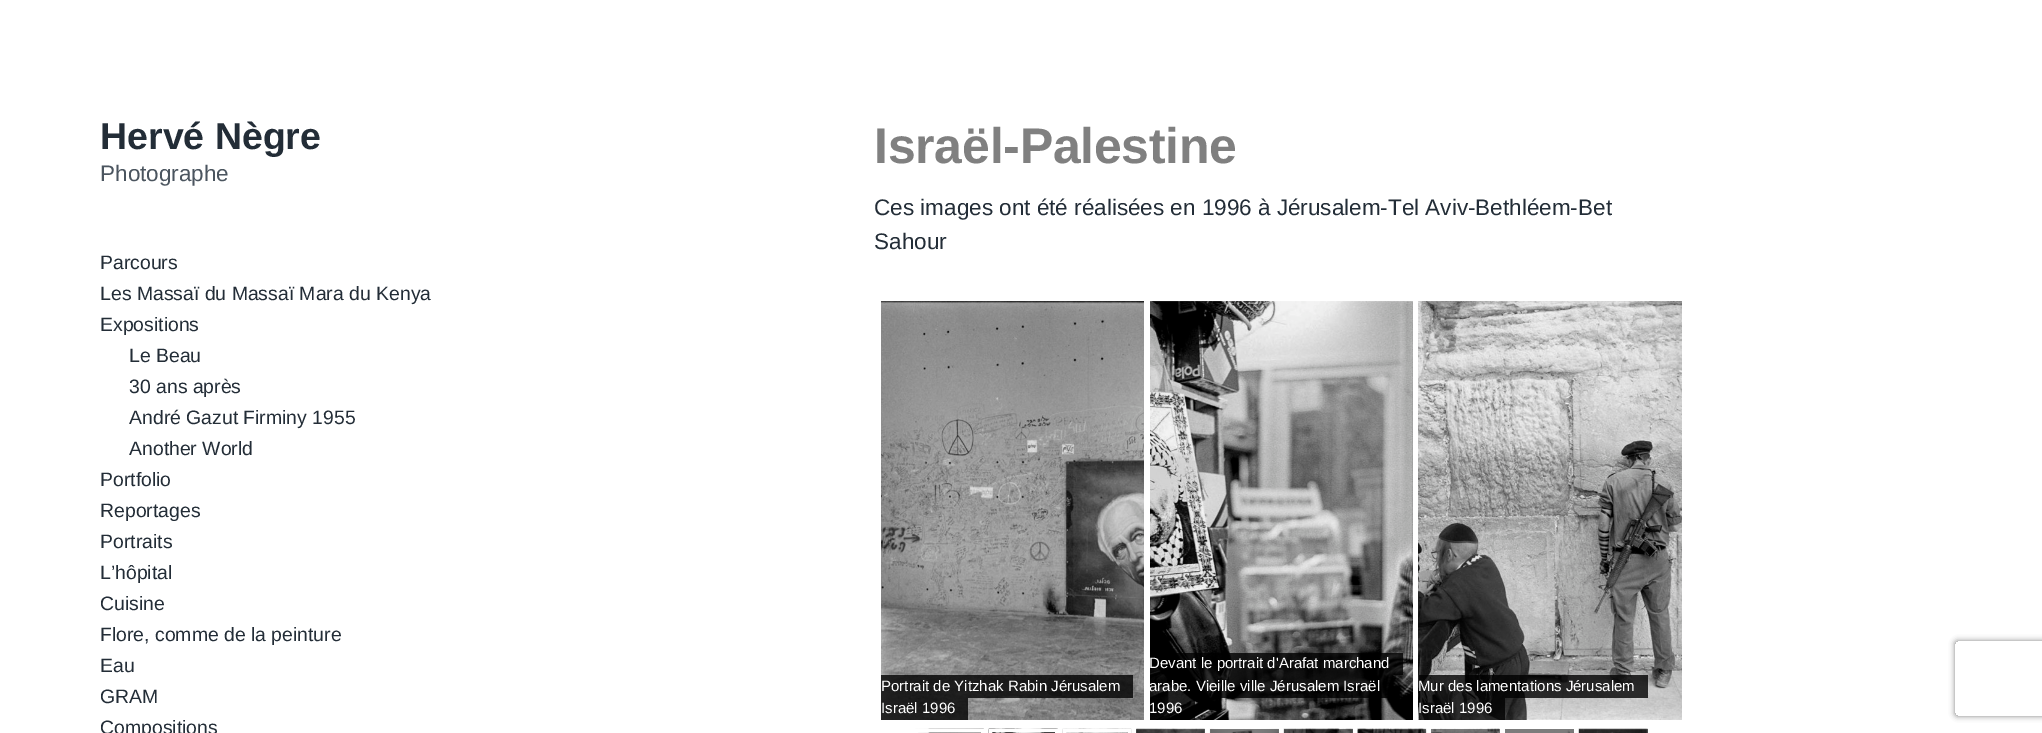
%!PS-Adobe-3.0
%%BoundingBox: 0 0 2042 733
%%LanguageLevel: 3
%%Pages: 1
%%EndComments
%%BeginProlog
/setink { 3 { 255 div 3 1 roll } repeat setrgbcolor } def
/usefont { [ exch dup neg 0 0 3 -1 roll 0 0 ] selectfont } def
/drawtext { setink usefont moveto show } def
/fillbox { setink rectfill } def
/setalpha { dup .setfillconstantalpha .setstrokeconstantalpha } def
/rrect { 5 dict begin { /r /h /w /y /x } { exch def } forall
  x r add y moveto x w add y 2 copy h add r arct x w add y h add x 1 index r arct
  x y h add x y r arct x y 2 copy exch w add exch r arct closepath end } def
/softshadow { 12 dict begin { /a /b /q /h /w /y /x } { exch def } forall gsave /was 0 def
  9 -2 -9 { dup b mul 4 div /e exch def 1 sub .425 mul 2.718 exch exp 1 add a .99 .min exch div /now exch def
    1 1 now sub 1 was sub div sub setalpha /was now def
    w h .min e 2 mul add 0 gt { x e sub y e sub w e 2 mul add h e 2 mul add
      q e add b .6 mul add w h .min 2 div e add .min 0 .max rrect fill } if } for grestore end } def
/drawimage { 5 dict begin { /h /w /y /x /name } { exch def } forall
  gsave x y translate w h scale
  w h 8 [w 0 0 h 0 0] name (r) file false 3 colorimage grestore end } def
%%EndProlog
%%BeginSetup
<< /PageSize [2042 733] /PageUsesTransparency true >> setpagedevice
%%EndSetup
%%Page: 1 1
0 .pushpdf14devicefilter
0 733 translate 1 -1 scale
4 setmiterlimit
0 0 2042 733 255 255 255 fillbox
1505 729 69 4 128 128 128 fillbox
(Hervé Nègre) 100 149 /LiberationSans-Bold 37.5 35 45 55 drawtext
(Photographe) 100 181 /LiberationSans-Regular 22.5 75 85 95 drawtext
(Parcours) 100 269 /LiberationSans-Regular 19.4 35 45 55 drawtext
(Les Massaï du Massaï Mara du Kenya) 100 300 /LiberationSans-Regular 19.4 35 45 55 drawtext
(Expositions) 100 331 /LiberationSans-Regular 19.4 35 45 55 drawtext
(Le Beau) 129 362 /LiberationSans-Regular 19.4 35 45 55 drawtext
(30 ans après) 129 393 /LiberationSans-Regular 19.4 35 45 55 drawtext
(André Gazut Firminy 1955) 129 424 /LiberationSans-Regular 19.4 35 45 55 drawtext
(Another World) 129 455 /LiberationSans-Regular 19.4 35 45 55 drawtext
(Portfolio) 100 486 /LiberationSans-Regular 19.4 35 45 55 drawtext
(Reportages) 100 517 /LiberationSans-Regular 19.4 35 45 55 drawtext
(Portraits) 100 548 /LiberationSans-Regular 19.4 35 45 55 drawtext
(L’hôpital) 100 579 /LiberationSans-Regular 19.4 35 45 55 drawtext
(Cuisine) 100 610 /LiberationSans-Regular 19.4 35 45 55 drawtext
(Flore, comme de la peinture) 100 641 /LiberationSans-Regular 19.4 35 45 55 drawtext
(Eau) 100 672 /LiberationSans-Regular 19.4 35 45 55 drawtext
(GRAM) 100 703 /LiberationSans-Regular 19.4 35 45 55 drawtext
(Compositions) 100 734 /LiberationSans-Regular 19.4 35 45 55 drawtext
/LiberationSans-Bold 50 usefont
128 128 128 setink
874 163 moveto -0.25 0 (Israël-Palestine) ashow
(Ces images ont été réalisées en 1996 à Jérusalem-Tel Aviv-Bethléem-Bet) 874 215 /LiberationSans-Regular 22.5 35 45 55 drawtext
(Sahour) 874 249 /LiberationSans-Regular 22.5 35 45 55 drawtext
(assets/img1.rgb) 881 301 263 419 drawimage
0.8 setalpha
881 675 239 23 0 0 0 fillbox
1 setalpha
(Portrait de Yitzhak Rabin Jérusalem) 881 691 /LiberationSans-Regular 15 255 255 255 drawtext
0.8 setalpha
0 0 0 setink
894 698 moveto 1133 698 lineto 1133 675 lineto 1120 675 lineto 1120 698 lineto closepath fill
881 698 74 22 0 0 0 fillbox
1 setalpha
(Israël 1996) 881 713 /LiberationSans-Regular 15 255 255 255 drawtext
0.8 setalpha
955 698 13 22 0 0 0 fillbox
1 setalpha
(assets/img2.rgb) 1150 301 263 419 drawimage
0.8 setalpha
1150 653 240 22 0 0 0 fillbox
1 setalpha
(Devant le portrait d'Arafat marchand) 1149 668 /LiberationSans-Regular 15 255 255 255 drawtext
0.8 setalpha
1390 653 13 22 0 0 0 fillbox
1150 675 230 23 0 0 0 fillbox
1 setalpha
(arabe. Vieille ville Jérusalem Israël) 1149 691 /LiberationSans-Regular 15 255 255 255 drawtext
0.8 setalpha
0 0 0 setink
1163 698 moveto 1393 698 lineto 1393 675 lineto 1380 675 lineto 1380 698 lineto closepath fill
1150 698 33 22 0 0 0 fillbox
1 setalpha
(1996) 1149 713 /LiberationSans-Regular 15 255 255 255 drawtext
0.8 setalpha
1183 698 12 22 0 0 0 fillbox
1 setalpha
(assets/img3.rgb) 1418 301 264 419 drawimage
0.8 setalpha
1419 675 216 23 0 0 0 fillbox
1 setalpha
(Mur des lamentations Jérusalem) 1418 691 /LiberationSans-Regular 15 255 255 255 drawtext
0.8 setalpha
0 0 0 setink
1431 698 moveto 1648 698 lineto 1648 675 lineto 1635 675 lineto 1635 698 lineto closepath fill
1419 698 74 22 0 0 0 fillbox
1 setalpha
(Israël 1996) 1418 713 /LiberationSans-Regular 15 255 255 255 drawtext
0.8 setalpha
1493 698 12 22 0 0 0 fillbox
1 setalpha
(assets/img4.rgb) 915 728 69 5 drawimage
255 255 255 setink
3 setlinewidth
916.5 730.5 66 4 rectstroke
(assets/img5.rgb) 988 728 70 5 drawimage
990.5 730.5 66 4 rectstroke
(assets/img6.rgb) 1062 728 70 5 drawimage
1064.5 730.5 65 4 rectstroke
(assets/img7.rgb) 1136 728 69 5 drawimage
0.5 setalpha
1136 729 69 4 0 0 0 fillbox
1 setalpha
(assets/img8.rgb) 1209 728 70 5 drawimage
0.5 setalpha
1210 729 69 4 0 0 0 fillbox
1 setalpha
(assets/img9.rgb) 1283 728 70 5 drawimage
0.5 setalpha
1284 729 69 4 0 0 0 fillbox
1 setalpha
(assets/img10.rgb) 1357 728 70 5 drawimage
0.5 setalpha
1358 729 68 4 0 0 0 fillbox
1 setalpha
(assets/img11.rgb) 1431 728 69 5 drawimage
0.5 setalpha
1431 729 69 4 0 0 0 fillbox
1 setalpha
(assets/img12.rgb) 1505 729 69 4 drawimage
(assets/img13.rgb) 1578 728 70 5 drawimage
0.5 setalpha
1579 729 69 4 0 0 0 fillbox
gsave
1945 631 moveto 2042 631 lineto 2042 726 lineto 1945 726 lineto closepath 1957.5 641 moveto 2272.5 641 lineto 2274 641 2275 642 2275 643.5 curveto 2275 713.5 lineto 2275 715 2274 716 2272.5 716 curveto 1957.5 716 lineto 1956 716 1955 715 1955 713.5 curveto 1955 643.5 lineto 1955 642 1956 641 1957.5 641 curveto closepath eoclip newpath
1 setalpha
128 128 128 setink
1955 641 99 75 2.5 3 1 softshadow
grestore
.poppdf14devicefilter showpage
%%EOF
